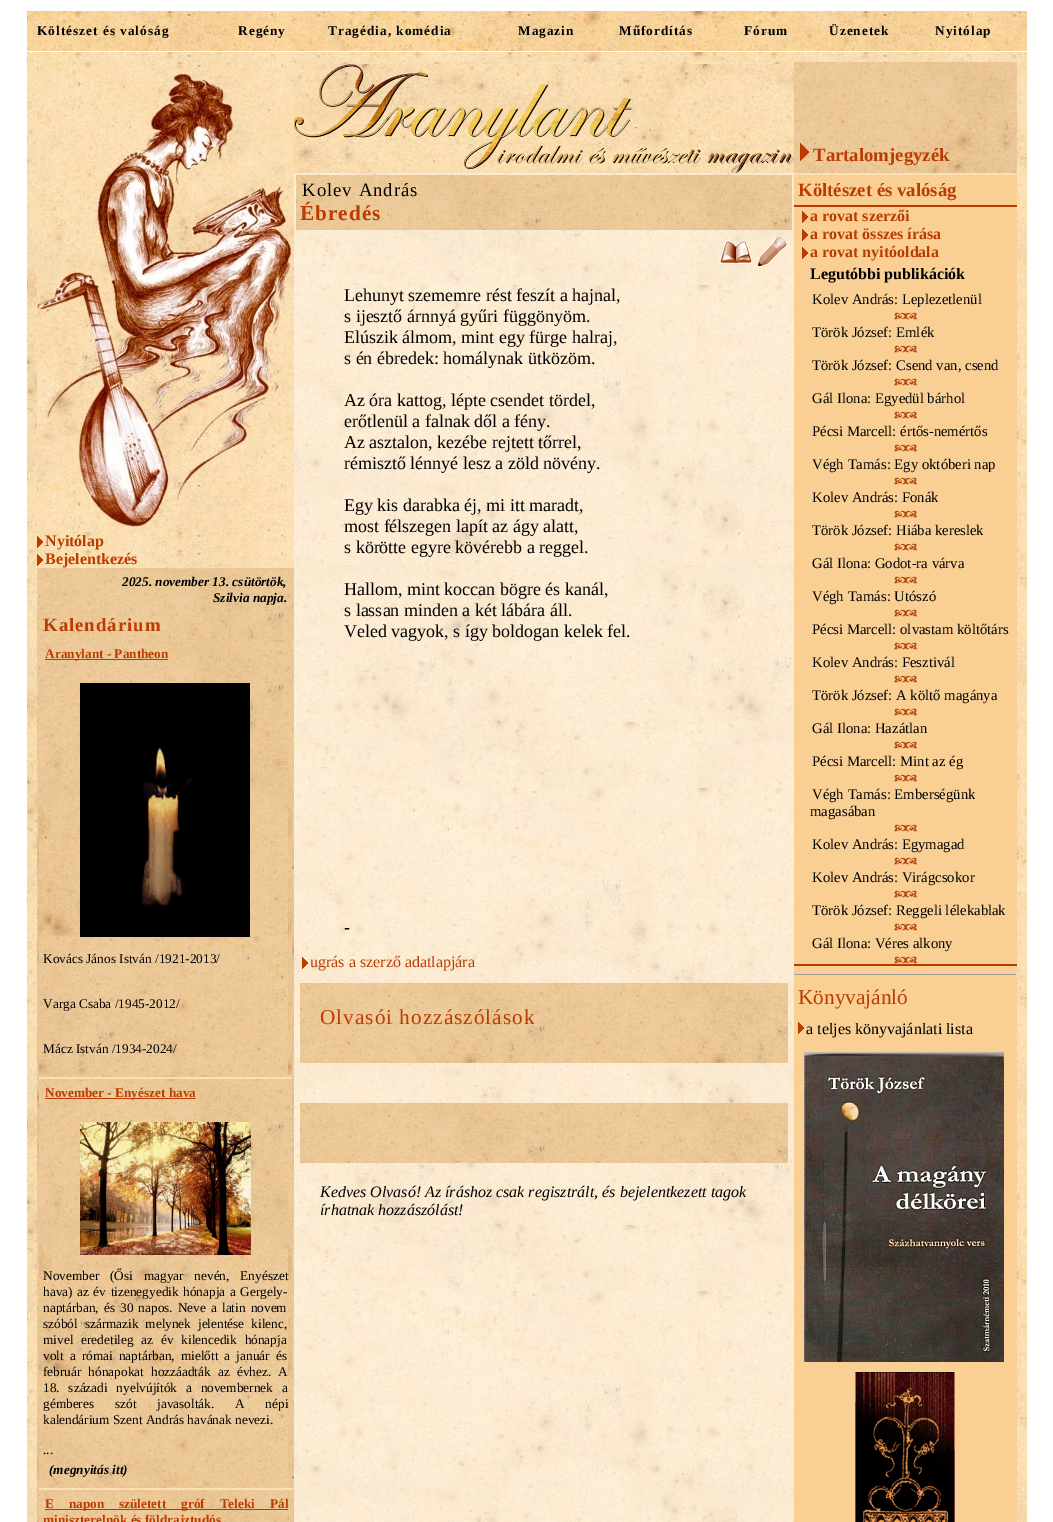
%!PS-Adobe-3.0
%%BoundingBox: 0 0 1053 1522
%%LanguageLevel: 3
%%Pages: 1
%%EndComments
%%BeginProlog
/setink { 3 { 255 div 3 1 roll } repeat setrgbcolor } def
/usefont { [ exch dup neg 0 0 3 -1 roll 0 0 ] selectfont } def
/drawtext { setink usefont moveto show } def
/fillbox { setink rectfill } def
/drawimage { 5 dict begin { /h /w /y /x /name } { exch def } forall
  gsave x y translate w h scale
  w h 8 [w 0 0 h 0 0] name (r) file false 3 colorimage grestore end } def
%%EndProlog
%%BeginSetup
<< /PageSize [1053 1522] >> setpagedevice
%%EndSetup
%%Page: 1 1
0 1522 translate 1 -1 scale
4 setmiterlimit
0 0 1053 1522 255 255 255 fillbox
(assets/img1.rgb) 27 11 1000 40 drawimage
/LiberationSerif-Bold 13.3 usefont
0 0 0 setink
37 35 moveto 1 0 (Költészet és valóság) ashow
238 35 moveto 1 0 (Regény) ashow
328 35 moveto 1 0 (Tragédia, komédia) ashow
518 35 moveto 1 0 (Magazin) ashow
619 35 moveto 1 0 (Műfordítás) ashow
744 35 moveto 1 0 (Fórum) ashow
829 35 moveto 1 0 (Üzenetek) ashow
935 35 moveto 1 0 (Nyitólap) ashow
(assets/img2.rgb) 27 52 1000 1470 drawimage
(assets/img3.rgb) 37 568 257 954 drawimage
(assets/img4.rgb) 37 62 257 470 drawimage
(assets/img5.rgb) 37 532 257 18 drawimage
(assets/img6.rgb) 37 536 6 12 drawimage
(Nyitólap) 45 546 /LiberationSerif-Bold 16 187 60 1 drawtext
(assets/img5.rgb) 37 550 257 18 drawimage
(assets/img6.rgb) 37 554 6 12 drawimage
(Bejelentkezés) 45 564 /LiberationSerif-Bold 16 187 60 1 drawtext
(assets/img7.rgb) 39 570 253 70 drawimage
(2025. november 13. csütörtök,) 122 586 /LiberationSerif-BoldItalic 13.3 0 0 0 drawtext
(Szilvia napja.) 213 602 /LiberationSerif-BoldItalic 13.3 0 0 0 drawtext
/LiberationSerif-Bold 18.75 usefont
187 60 1 setink
43 631 moveto 1 0 (Kalendárium) ashow
(assets/img8.rgb) 39 642 253 433 drawimage
45 659 123 1 187 60 1 fillbox
(Aranylant - Pantheon) 45 658 /LiberationSerif-Bold 13.3 187 60 1 drawtext
(assets/img9.rgb) 80 683 170 254 drawimage
(Kovács János István /1921-2013/) 43 963 /LiberationSerif-Regular 13.3 0 0 0 drawtext
(Varga Csaba /1945-2012/) 43 1008 /LiberationSerif-Regular 13.3 0 0 0 drawtext
(Mácz István /1934-2024/) 43 1053 /LiberationSerif-Regular 13.3 0 0 0 drawtext
39 1077 253 2 251 224 179 fillbox
(assets/img10.rgb) 39 1081 253 405 drawimage
45 1098 151 1 187 60 1 fillbox
(November - Enyészet hava) 45 1097 /LiberationSerif-Bold 13.3 187 60 1 drawtext
(assets/img11.rgb) 80 1122 171 133 drawimage
/LiberationSerif-Regular 13.3 usefont
0 0 0 setink
43 1280 moveto 7.5 0 32 (November \(Ősi magyar nevén, Enyészet) widthshow
43 1296 moveto 1.25 0 32 (hava\) az év tizenegyedik hónapja a Gergely-) widthshow
43 1312 moveto 1.75 0 32 (naptárban, és 30 napos. Neve a latin novem) widthshow
43 1328 moveto 3.5 0 32 (szóból származik melynek jelentése kilenc,) widthshow
43 1344 moveto 4.5 0 32 (mivel eredetileg az év kilencedik hónapja) widthshow
43 1360 moveto 2.75 0 32 (volt a római naptárban, mielőtt a január és) widthshow
43 1376 moveto 3.75 0 32 (február hónapokat hozzáadták az évhez. A) widthshow
43 1392 moveto 5.5 0 32 (18. századi nyelvújítók a novembernek a) widthshow
43 1408 moveto 17.5 0 32 (gémberes szót javasolták. A népi) widthshow
(kalendárium Szent András havának nevezi.) 43 1424 /LiberationSerif-Regular 13.3 0 0 0 drawtext
(...) 43 1454 /LiberationSerif-Regular 13.3 0 0 0 drawtext
(\(megnyitás itt\)) 49 1474 /LiberationSerif-BoldItalic 13.3 0 0 0 drawtext
39 1488 253 2 251 224 179 fillbox
(assets/img12.rgb) 39 1492 253 30 drawimage
45 1509 243 1 187 60 1 fillbox
/LiberationSerif-Bold 13.3 usefont
45 1508 moveto 11.5 0 32 (E napon született gróf Teleki Pál) widthshow
(miniszterelnök és földrajztudós) 43 1524 /LiberationSerif-Bold 13.3 187 60 1 drawtext
(assets/img13.rgb) 294 173 500 1349 drawimage
(assets/img14.rgb) 294 62 500 2 drawimage
(assets/img15.rgb) 294 64 500 109 drawimage
(assets/img16.rgb) 296 175 496 55 drawimage
/LiberationSerif-Regular 18.75 usefont
0 0 0 setink
302 196 moveto 1 0 (Kolev András) ashow
/LiberationSerif-Bold 21.25 usefont
187 60 1 setink
300 220 moveto 1 0 (Ébredés) ashow
(assets/img17.rgb) 720 240 32 24 drawimage
(assets/img18.rgb) 758 237 29 30 drawimage
(Lehunyt szememre rést feszít a hajnal,) 344 301 /LiberationSerif-Regular 18 0 0 0 drawtext
(s ijesztő árnnyá gyűri függönyöm.) 344 322 /LiberationSerif-Regular 18 0 0 0 drawtext
(Elúszik álmom, mint egy fürge halraj,) 344 343 /LiberationSerif-Regular 18 0 0 0 drawtext
(s én ébredek: homálynak ütközöm.) 344 364 /LiberationSerif-Regular 18 0 0 0 drawtext
(Az óra kattog, lépte csendet tördel,) 344 406 /LiberationSerif-Regular 18 0 0 0 drawtext
(erőtlenül a falnak dől a fény.) 344 427 /LiberationSerif-Regular 18 0 0 0 drawtext
(Az asztalon, kezébe rejtett tőrrel,) 344 448 /LiberationSerif-Regular 18 0 0 0 drawtext
(rémisztő lénnyé lesz a zöld növény.) 344 469 /LiberationSerif-Regular 18 0 0 0 drawtext
(Egy kis darabka éj, mi itt maradt,) 344 511 /LiberationSerif-Regular 18 0 0 0 drawtext
(most félszegen lapít az ágy alatt,) 344 532 /LiberationSerif-Regular 18 0 0 0 drawtext
(s körötte egyre kövérebb a reggel.) 344 553 /LiberationSerif-Regular 18 0 0 0 drawtext
(Hallom, mint koccan bögre és kanál,) 344 595 /LiberationSerif-Regular 18 0 0 0 drawtext
(s lassan minden a két lábára áll.) 344 616 /LiberationSerif-Regular 18 0 0 0 drawtext
(Veled vagyok, s így boldogan kelek fel.) 344 637 /LiberationSerif-Regular 18 0 0 0 drawtext
(-) 344 933 /LiberationSerif-Regular 18 0 0 0 drawtext
(assets/img19.rgb) 302 957 6 12 drawimage
(ugrás a szerző adatlapjára) 310 967 /LiberationSerif-Regular 16 187 60 1 drawtext
(assets/img20.rgb) 300 983 488 80 drawimage
/LiberationSerif-Regular 21.25 usefont
320 1024 moveto 1 0 (Olvasói hozzászólások) ashow
(assets/img21.rgb) 300 1063 488 40 drawimage
(assets/img22.rgb) 300 1103 488 60 drawimage
(Kedves Olvasó! Az íráshoz csak regisztrált, és bejelentkezett tagok) 320 1197 /LiberationSerif-Italic 16 0 0 0 drawtext
(írhatnak hozzászólást!) 320 1215 /LiberationSerif-Italic 16 0 0 0 drawtext
794 175 223 1347 249 207 148 fillbox
(assets/img23.rgb) 794 62 223 111 drawimage
(assets/img24.rgb) 800 143 9 18 drawimage
(Tartalomjegyzék) 813 161 /LiberationSerif-Bold 18.75 187 60 1 drawtext
794 173 223 2 251 224 179 fillbox
(Költészet és valóság) 798 196 /LiberationSerif-Bold 18.75 187 60 1 drawtext
794 205 223 2 187 60 1 fillbox
(assets/img25.rgb) 802 211 6 12 drawimage
(a rovat szerzői) 810 221 /LiberationSerif-Bold 16 187 60 1 drawtext
(assets/img25.rgb) 802 229 6 12 drawimage
(a rovat összes írása) 810 239 /LiberationSerif-Bold 16 187 60 1 drawtext
(assets/img25.rgb) 802 247 6 12 drawimage
(a rovat nyitóoldala) 810 257 /LiberationSerif-Bold 16 187 60 1 drawtext
(Legutóbbi publikációk) 810 279 /LiberationSerif-Bold 16 0 0 0 drawtext
(Kolev András: Leplezetlenül) 812 304 /LiberationSerif-Regular 14.7 0 0 0 drawtext
(assets/img26.rgb) 894 312 23 8 drawimage
(Török József: Emlék) 812 337 /LiberationSerif-Regular 14.7 0 0 0 drawtext
(assets/img26.rgb) 894 345 23 8 drawimage
(Török József: Csend van, csend) 812 370 /LiberationSerif-Regular 14.7 0 0 0 drawtext
(assets/img26.rgb) 894 378 23 8 drawimage
(Gál Ilona: Egyedül bárhol) 812 403 /LiberationSerif-Regular 14.7 0 0 0 drawtext
(assets/img26.rgb) 894 411 23 8 drawimage
(Pécsi Marcell: értős-nemértős) 812 436 /LiberationSerif-Regular 14.7 0 0 0 drawtext
(assets/img26.rgb) 894 444 23 8 drawimage
(Végh Tamás: Egy októberi nap) 812 469 /LiberationSerif-Regular 14.7 0 0 0 drawtext
(assets/img26.rgb) 894 477 23 8 drawimage
(Kolev András: Fonák) 812 502 /LiberationSerif-Regular 14.7 0 0 0 drawtext
(assets/img26.rgb) 894 510 23 8 drawimage
(Török József: Hiába kereslek) 812 535 /LiberationSerif-Regular 14.7 0 0 0 drawtext
(assets/img26.rgb) 894 543 23 8 drawimage
(Gál Ilona: Godot-ra várva) 812 568 /LiberationSerif-Regular 14.7 0 0 0 drawtext
(assets/img26.rgb) 894 576 23 8 drawimage
(Végh Tamás: Utószó) 812 601 /LiberationSerif-Regular 14.7 0 0 0 drawtext
(assets/img26.rgb) 894 609 23 8 drawimage
(Pécsi Marcell: olvastam költőtárs) 812 634 /LiberationSerif-Regular 14.7 0 0 0 drawtext
(assets/img26.rgb) 894 642 23 8 drawimage
(Kolev András: Fesztivál) 812 667 /LiberationSerif-Regular 14.7 0 0 0 drawtext
(assets/img26.rgb) 894 675 23 8 drawimage
(Török József: A költő magánya) 812 700 /LiberationSerif-Regular 14.7 0 0 0 drawtext
(assets/img26.rgb) 894 708 23 8 drawimage
(Gál Ilona: Hazátlan) 812 733 /LiberationSerif-Regular 14.7 0 0 0 drawtext
(assets/img26.rgb) 894 741 23 8 drawimage
(Pécsi Marcell: Mint az ég) 812 766 /LiberationSerif-Regular 14.7 0 0 0 drawtext
(assets/img26.rgb) 894 774 23 8 drawimage
(Végh Tamás: Emberségünk) 812 799 /LiberationSerif-Regular 14.7 0 0 0 drawtext
(magasában) 810 816 /LiberationSerif-Regular 14.7 0 0 0 drawtext
(assets/img26.rgb) 894 824 23 8 drawimage
(Kolev András: Egymagad) 812 849 /LiberationSerif-Regular 14.7 0 0 0 drawtext
(assets/img26.rgb) 894 857 23 8 drawimage
(Kolev András: Virágcsokor) 812 882 /LiberationSerif-Regular 14.7 0 0 0 drawtext
(assets/img26.rgb) 894 890 23 8 drawimage
(Török József: Reggeli lélekablak) 812 915 /LiberationSerif-Regular 14.7 0 0 0 drawtext
(assets/img26.rgb) 894 923 23 8 drawimage
(Gál Ilona: Véres alkony) 812 948 /LiberationSerif-Regular 14.7 0 0 0 drawtext
(assets/img26.rgb) 894 956 23 8 drawimage
794 964 223 2 187 60 1 fillbox
794 974 223 1 159 159 159 fillbox
1016 974 1 1 238 238 238 fillbox
(Könyvajánló) 798 1004 /LiberationSerif-Regular 21.25 187 60 1 drawtext
(assets/img25.rgb) 798 1022 6 12 drawimage
(a teljes könyvajánlati lista) 806 1034 /LiberationSerif-Regular 16 0 0 0 drawtext
(assets/img27.rgb) 804 1052 200 310 drawimage
(assets/img28.rgb) 855 1372 100 150 drawimage
showpage
%%EOF
